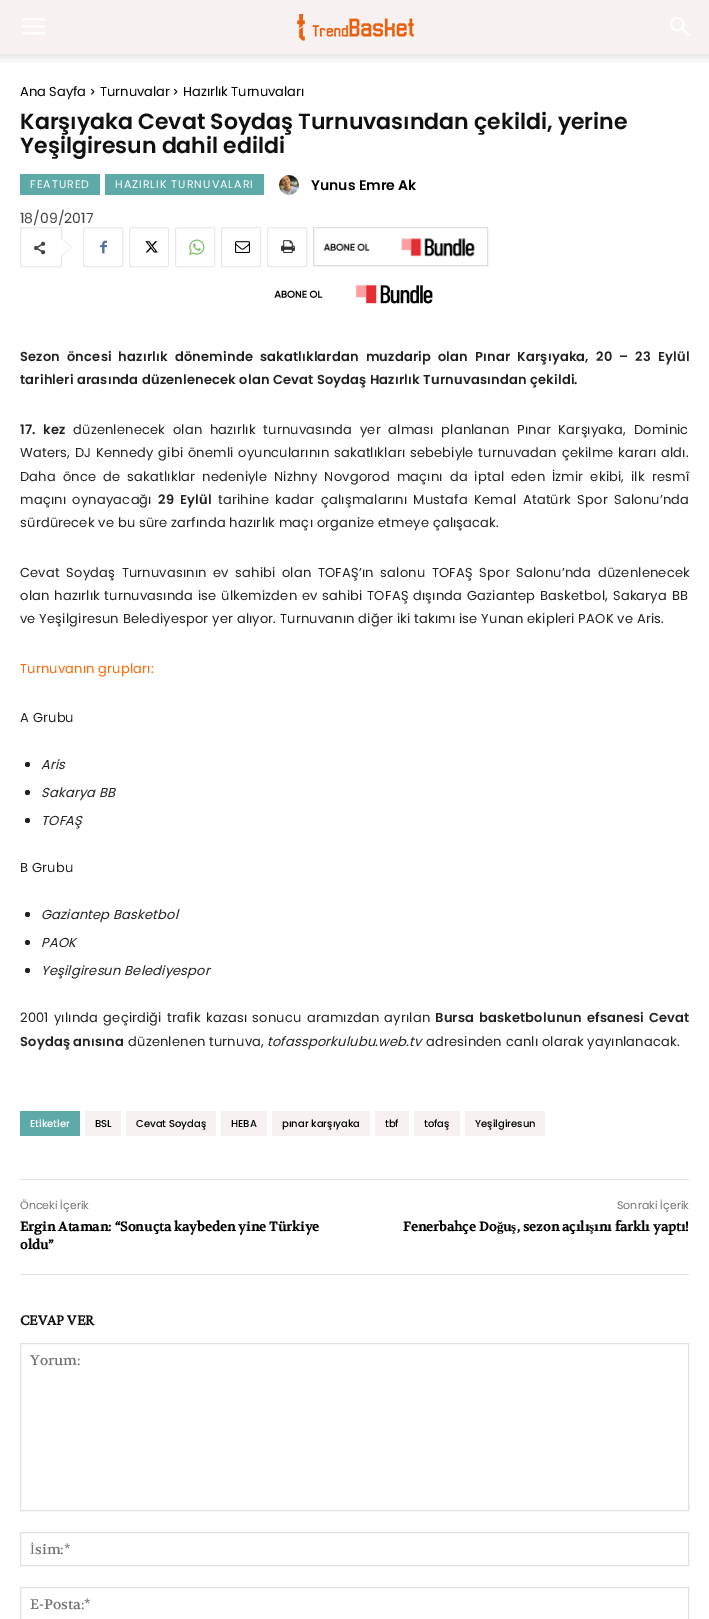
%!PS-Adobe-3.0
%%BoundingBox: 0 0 709 1619
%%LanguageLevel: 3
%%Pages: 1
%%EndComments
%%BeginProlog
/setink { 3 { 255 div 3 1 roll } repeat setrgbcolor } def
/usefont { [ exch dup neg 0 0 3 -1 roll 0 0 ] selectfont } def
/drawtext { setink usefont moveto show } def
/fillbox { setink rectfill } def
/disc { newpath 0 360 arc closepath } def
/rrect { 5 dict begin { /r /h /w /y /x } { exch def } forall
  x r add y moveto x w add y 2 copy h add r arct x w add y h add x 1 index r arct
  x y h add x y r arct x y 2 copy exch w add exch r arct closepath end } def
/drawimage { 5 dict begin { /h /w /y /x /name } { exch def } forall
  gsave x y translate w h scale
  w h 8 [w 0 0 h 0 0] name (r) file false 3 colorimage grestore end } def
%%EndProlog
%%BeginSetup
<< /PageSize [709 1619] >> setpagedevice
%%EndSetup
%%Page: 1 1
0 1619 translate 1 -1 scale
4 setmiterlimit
0 0 709 1619 255 255 255 fillbox
0 0 709 54 248 241 241 fillbox
(assets/img1.rgb) 22 18 23 17 drawimage
(assets/img2.rgb) 297 14 117 27 drawimage
(assets/img3.rgb) 670 17 20 19 drawimage
(assets/img4.rgb) 0 54 709 9 drawimage
(Ana Sayfa) 20 96 /Poppins-Regular 13 0 0 0 drawtext
(assets/img5.rgb) 91 88 4 7 drawimage
(Turnuvalar) 100 96 /Poppins-Regular 13 0 0 0 drawtext
(assets/img5.rgb) 174 88 4 7 drawimage
(Hazırlık Turnuvaları) 183 96 /Poppins-Regular 13 0 0 0 drawtext
(Karşıyaka Cevat Soydaş Turnuvasından çekildi, yerine) 20 129 /Poppins-SemiBold 22 17 17 17 drawtext
(Yeşilgiresun dahil edildi) 20 153 /Poppins-SemiBold 22 17 17 17 drawtext
20 174 80 21 94 170 168 fillbox
/Poppins-Regular 11 usefont
255 255 255 setink
30 188 moveto 1 0 (FEATURED) ashow
105 174 159 21 94 170 168 fillbox
255 255 255 setink
115 188 moveto 1 0 (HAZIRLIK TURNUVALARI) ashow
(assets/img6.rgb) 279 175 20 20 drawimage
(Yunus Emre Ak) 311 190 /Poppins-SemiBold 14 0 0 0 drawtext
(18/09/2017) 20 223 /Poppins-Regular 14 68 68 68 drawtext
233 233 233 setink
20.5 227.5 41 39 1.5 rrect stroke
61 256 moveto 61 238 lineto 72 247 lineto closepath fill
(assets/img7.rgb) 34 241 12 14 drawimage
255 255 255 setink
61 255 moveto 61 239 lineto 71 247 lineto closepath fill
233 233 233 setink
83.5 227.5 39 39 1.5 rrect stroke
(assets/img8.rgb) 100 240 7 14 drawimage
129.5 227.5 39 39 1.5 rrect stroke
(assets/img9.rgb) 145 241 13 12 drawimage
175.5 227.5 39 39 1.5 rrect stroke
(assets/img10.rgb) 189 239 16 16 drawimage
221.5 227.5 39 39 1.5 rrect stroke
(assets/img11.rgb) 235 241 15 12 drawimage
267.5 227.5 39 39 1.5 rrect stroke
(assets/img12.rgb) 281 240 14 13 drawimage
221 221 221 setink
313.5 227.5 174 38 rectstroke
(assets/img13.rgb) 323 238 152 19 drawimage
(assets/img14.rgb) 274 285 159 19 drawimage
/Poppins-SemiBold 13 usefont
34 34 34 setink
20 361 moveto 3.6 0 32 0.2 0 (Sezon öncesi hazırlık döneminde sakatlıklardan muzdarip olan Pınar Karşıyaka, 20 – 23 Eylül) awidthshow
20 384 moveto 0.2 0 (tarihleri arasında düzenlenecek olan Cevat Soydaş Hazırlık Turnuvasından çekildi.) ashow
20 434 moveto 4 0 32 0.2 0 (17. kez) awidthshow
/Poppins-Regular 13 usefont
73 434 moveto 4 0 32 0.2 0 (düzenlenecek olan hazırlık turnuvasında yer alması planlanan Pınar Karşıyaka, Dominic) awidthshow
20 457 moveto 1 0 32 0.2 0 (Waters, DJ Kennedy gibi önemli oyuncularının sakatlıkları sebebiyle turnuvadan çekilme kararı aldı.) awidthshow
20 481 moveto 3.25 0 32 0.2 0 (Daha önce de sakatlıklar nedeniyle Nizhny Novgorod maçını da iptal eden İzmir ekibi, ilk resmî) awidthshow
20 504 moveto 2.75 0 32 0.2 0 (maçını oynayacağı) awidthshow
/Poppins-SemiBold 13 usefont
158 504 moveto 2.75 0 32 0.2 0 (29 Eylül) awidthshow
/Poppins-Regular 13 usefont
218 504 moveto 2.75 0 32 0.2 0 (tarihine kadar çalışmalarını Mustafa Kemal Atatürk Spor Salonu’nda) awidthshow
20 527 moveto 0.2 0 (sürdürecek ve bu süre zarfında hazırlık maçı organize etmeye çalışacak.) ashow
20 577 moveto 2.75 0 32 0.2 0 (Cevat Soydaş Turnuvasının ev sahibi olan TOFAŞ’ın salonu TOFAŞ Spor Salonu’nda düzenlenecek) awidthshow
20 600 moveto 1 0 32 0.2 0 (olan hazırlık turnuvasında ise ülkemizden ev sahibi TOFAŞ dışında Gaziantep Basketbol, Sakarya BB) awidthshow
20 623 moveto 0.2 0 (ve Yeşilgiresun Belediyespor yer alıyor. Turnuvanın diğer iki takımı ise Yunan ekipleri PAOK ve Aris.) ashow
255 102 0 setink
20 673 moveto 0.2 0 (Turnuvanın grupları:) ashow
34 34 34 setink
20 722 moveto 0.2 0 (A Grubu) ashow
27.5 764.5 2.5 disc fill
/Poppins-Italic 13 usefont
41 769 moveto 0.2 0 (Aris) ashow
27.5 792.5 2.5 disc fill
41 797 moveto 0.2 0 (Sakarya BB) ashow
27.5 820.5 2.5 disc fill
41 825 moveto 0.2 0 (TOFAŞ) ashow
/Poppins-Regular 13 usefont
20 872 moveto 0.2 0 (B Grubu) ashow
27.5 914.5 2.5 disc fill
/Poppins-Italic 13 usefont
41 919 moveto 0.2 0 (Gaziantep Basketbol) ashow
27.5 942.5 2.5 disc fill
41 947 moveto 0.2 0 (PAOK) ashow
27.5 970.5 2.5 disc fill
41 975 moveto 0.2 0 (Yeşilgiresun Belediyespor) ashow
/Poppins-Regular 13 usefont
20 1022 moveto 1.5 0 32 0.2 0 (2001 yılında geçirdiği trafik kazası sonucu aramızdan ayrılan) awidthshow
/Poppins-SemiBold 13 usefont
435 1022 moveto 1.5 0 32 0.2 0 (Bursa basketbolunun efsanesi Cevat) awidthshow
20 1046 moveto 0.2 0 (Soydaş anısına) ashow
/Poppins-Regular 13 usefont
128 1046 moveto 0.2 0 (düzenlenen turnuva,) ashow
/Poppins-Italic 13 usefont
267 1046 moveto 0.2 0 (tofassporkulubu.web.tv) ashow
/Poppins-Regular 13 usefont
426 1046 moveto 0.2 0 (adresinden canlı olarak yayınlanacak.) ashow
20 1111 60 25 94 170 168 fillbox
(Etiketler) 30 1127 /Poppins-Medium 10 255 255 255 drawtext
85 1111 36 25 248 241 241 fillbox
(BSL) 95 1127 /Poppins-Medium 10 0 0 0 drawtext
126 1111 90 25 248 241 241 fillbox
(Cevat Soydaş) 136 1127 /Poppins-Medium 10 0 0 0 drawtext
221 1111 46 25 248 241 241 fillbox
(HEBA) 231 1127 /Poppins-Medium 10 0 0 0 drawtext
272 1111 98 25 248 241 241 fillbox
(pınar karşıyaka) 282 1127 /Poppins-Medium 10 0 0 0 drawtext
375 1111 34 25 248 241 241 fillbox
(tbf) 385 1127 /Poppins-Medium 10 0 0 0 drawtext
414 1111 46 25 248 241 241 fillbox
(tofaş) 424 1127 /Poppins-Medium 10 0 0 0 drawtext
465 1111 80 25 248 241 241 fillbox
(Yeşilgiresun) 475 1127 /Poppins-Medium 10 0 0 0 drawtext
20 1179 669 1 224 224 224 fillbox
20 1274 669 1 224 224 224 fillbox
(Önceki İçerik) 20 1209 /Poppins-Regular 11 116 116 116 drawtext
(Ergin Ataman: “Sonuçta kaybeden yine Türkiye) 20 1231 /Volkhov-Bold 13 0 0 0 drawtext
(oldu”) 20 1249 /Volkhov-Bold 13 0 0 0 drawtext
(Sonraki İçerik) 617 1209 /Poppins-Regular 11 116 116 116 drawtext
(Fenerbahçe Do) 403 1231 /Volkhov-Bold 13 0 0 0 drawtext
(ğ) 497 1231 /LiberationSerif-Bold 13 0 0 0 drawtext
(u) 503 1231 /Volkhov-Bold 13 0 0 0 drawtext
(ş) 511 1231 /LiberationSerif-Bold 13 0 0 0 drawtext
(, sezon açılı) 517 1231 /Volkhov-Bold 13 0 0 0 drawtext
(ş) 589 1231 /LiberationSerif-Bold 13 0 0 0 drawtext
(ını farklı yaptı!) 594 1231 /Volkhov-Bold 13 0 0 0 drawtext
(CEVAP VER) 20 1325 /CrimsonPro-Bold 16 17 17 17 drawtext
225 225 225 setink
20.5 1343.5 668 167 rectstroke
(Yorum:) 30 1365 /Volkhov-Regular 14 116 116 116 drawtext
225 225 225 setink
20.5 1532.5 668 33 rectstroke
(İ) 30 1554 /LiberationSerif-Regular 14 116 116 116 drawtext
(sim:*) 35 1554 /Volkhov-Regular 14 116 116 116 drawtext
225 225 225 setink
20.5 1587.5 668 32 rectstroke
(E-Posta:*) 30 1609 /Volkhov-Regular 14 116 116 116 drawtext
showpage
%%EOF
